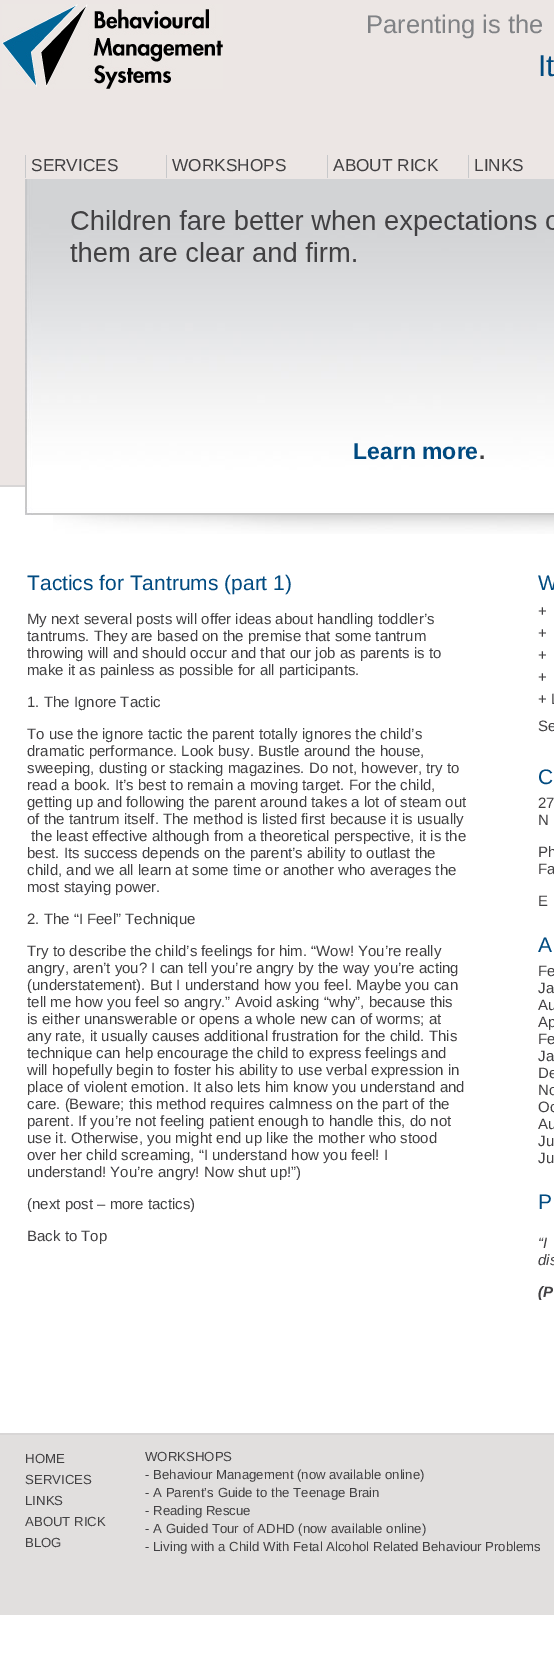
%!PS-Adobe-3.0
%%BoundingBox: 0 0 554 1680
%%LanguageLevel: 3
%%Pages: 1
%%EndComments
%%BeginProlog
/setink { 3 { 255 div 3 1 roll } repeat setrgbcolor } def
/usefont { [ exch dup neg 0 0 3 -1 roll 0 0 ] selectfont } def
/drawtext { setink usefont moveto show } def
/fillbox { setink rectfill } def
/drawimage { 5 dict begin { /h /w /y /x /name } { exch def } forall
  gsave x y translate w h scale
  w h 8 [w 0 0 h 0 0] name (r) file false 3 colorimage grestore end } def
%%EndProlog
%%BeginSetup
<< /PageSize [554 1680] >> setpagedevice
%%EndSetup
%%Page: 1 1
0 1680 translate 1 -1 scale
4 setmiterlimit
0 0 554 1680 255 255 255 fillbox
0 0 554 485 236 230 228 fillbox
0 485 25 2 216 214 214 fillbox
(assets/img1.rgb) 2 4 221 85 drawimage
(Parenting is the) 366 33 /LiberationSans-Regular 25.5 128 130 133 drawtext
(It) 538 76 /LiberationSans-Regular 30 0 74 128 drawtext
25 155 1 23 199 200 202 fillbox
(SERVICES) 31 171 /LiberationSans-Regular 17.25 65 64 66 drawtext
166 155 1 23 199 200 202 fillbox
(WORKSHOPS) 172 171 /LiberationSans-Regular 17.25 65 64 66 drawtext
327 155 1 23 199 200 202 fillbox
(ABOUT RICK) 333 171 /LiberationSans-Regular 17.25 65 64 66 drawtext
468 155 1 23 199 200 202 fillbox
(LINKS) 474 171 /LiberationSans-Regular 17.25 65 64 66 drawtext
(assets/img2.rgb) 25 179 529 336 drawimage
(assets/img3.rgb) 70 210 484 52 drawimage
(Learn more) 353 459 /LiberationSans-Bold 23 0 74 128 drawtext
(.) 479 459 /LiberationSans-Bold 23 65 64 66 drawtext
(assets/img4.rgb) 53 515 501 19 drawimage
(Tactics for Tantrums \(part 1\)) 27 590 /LiberationSans-Regular 21 0 74 128 drawtext
(My next several posts will offer ideas about handling toddler’s) 27 624 /LiberationSans-Regular 15 65 64 66 drawtext
(tantrums. They are based on the premise that some tantrum) 27 641 /LiberationSans-Regular 15 65 64 66 drawtext
(throwing will and should occur and that our job as parents is to) 27 658 /LiberationSans-Regular 15 65 64 66 drawtext
(make it as painless as possible for all participants.) 27 675 /LiberationSans-Regular 15 65 64 66 drawtext
(1. The Ignore Tactic) 27 707 /LiberationSans-Regular 15 65 64 66 drawtext
(To use the ignore tactic the parent totally ignores the child’s) 27 739 /LiberationSans-Regular 15 65 64 66 drawtext
(dramatic performance. Look busy. Bustle around the house,) 27 756 /LiberationSans-Regular 15 65 64 66 drawtext
(sweeping, dusting or stacking magazines. Do not, however, try to) 27 773 /LiberationSans-Regular 15 65 64 66 drawtext
(read a book. It’s best to remain a moving target. For the child,) 27 790 /LiberationSans-Regular 15 65 64 66 drawtext
(getting up and following the parent around takes a lot of steam out) 27 807 /LiberationSans-Regular 15 65 64 66 drawtext
(of the tantrum itself. The method is listed first because it is usually) 27 824 /LiberationSans-Regular 15 65 64 66 drawtext
(the least effective although from a theoretical perspective, it is the) 31 841 /LiberationSans-Regular 15 65 64 66 drawtext
(best. Its success depends on the parent’s ability to outlast the) 27 858 /LiberationSans-Regular 15 65 64 66 drawtext
(child, and we all learn at some time or another who averages the) 27 875 /LiberationSans-Regular 15 65 64 66 drawtext
(most staying power.) 27 892 /LiberationSans-Regular 15 65 64 66 drawtext
(2. The “I Feel” Technique) 27 924 /LiberationSans-Regular 15 65 64 66 drawtext
(Try to describe the child’s feelings for him. “Wow! You’re really) 27 956 /LiberationSans-Regular 15 65 64 66 drawtext
(angry, aren’t you? I can tell you’re angry by the way you’re acting) 27 973 /LiberationSans-Regular 15 65 64 66 drawtext
(\(understatement\). But I understand how you feel. Maybe you can) 27 990 /LiberationSans-Regular 15 65 64 66 drawtext
(tell me how you feel so angry.” Avoid asking “why”, because this) 27 1007 /LiberationSans-Regular 15 65 64 66 drawtext
(is either unanswerable or opens a whole new can of worms; at) 27 1024 /LiberationSans-Regular 15 65 64 66 drawtext
(any rate, it usually causes additional frustration for the child. This) 27 1041 /LiberationSans-Regular 15 65 64 66 drawtext
(technique can help encourage the child to express feelings and) 27 1058 /LiberationSans-Regular 15 65 64 66 drawtext
(will hopefully begin to foster his ability to use verbal expression in) 27 1075 /LiberationSans-Regular 15 65 64 66 drawtext
(place of violent emotion. It also lets him know you understand and) 27 1092 /LiberationSans-Regular 15 65 64 66 drawtext
(care. \(Beware; this method requires calmness on the part of the) 27 1109 /LiberationSans-Regular 15 65 64 66 drawtext
(parent. If you’re not feeling patient enough to handle this, do not) 27 1126 /LiberationSans-Regular 15 65 64 66 drawtext
(use it. Otherwise, you might end up like the mother who stood) 27 1143 /LiberationSans-Regular 15 65 64 66 drawtext
(over her child screaming, “I understand how you feel! I) 27 1160 /LiberationSans-Regular 15 65 64 66 drawtext
(understand! You’re angry! Now shut up!”\)) 27 1177 /LiberationSans-Regular 15 65 64 66 drawtext
(\(next post – more tactics\)) 27 1209 /LiberationSans-Regular 15 65 64 66 drawtext
(Back to Top) 27 1241 /LiberationSans-Regular 15 65 64 66 drawtext
(W) 538 590 /LiberationSans-Regular 21 0 74 128 drawtext
(+) 538 616 /LiberationSans-Regular 15 65 64 66 drawtext
(+) 538 638 /LiberationSans-Regular 15 65 64 66 drawtext
(+) 538 660 /LiberationSans-Regular 15 65 64 66 drawtext
(+) 538 682 /LiberationSans-Regular 15 65 64 66 drawtext
(+ L) 538 704 /LiberationSans-Regular 15 65 64 66 drawtext
(Se) 538 731 /LiberationSans-Regular 15 65 64 66 drawtext
(C) 538 784 /LiberationSans-Regular 21 0 74 128 drawtext
(27) 538 808 /LiberationSans-Regular 15 65 64 66 drawtext
(N) 538 825 /LiberationSans-Regular 15 65 64 66 drawtext
(Ph) 538 857 /LiberationSans-Regular 15 65 64 66 drawtext
(Fa) 538 874 /LiberationSans-Regular 15 65 64 66 drawtext
(E) 538 906 /LiberationSans-Regular 15 65 64 66 drawtext
(A) 538 952 /LiberationSans-Regular 21 0 74 128 drawtext
(Fe) 538 976 /LiberationSans-Regular 15 65 64 66 drawtext
(Ja) 538 993 /LiberationSans-Regular 15 65 64 66 drawtext
(Au) 538 1010 /LiberationSans-Regular 15 65 64 66 drawtext
(Ap) 538 1027 /LiberationSans-Regular 15 65 64 66 drawtext
(Fe) 538 1044 /LiberationSans-Regular 15 65 64 66 drawtext
(Ja) 538 1061 /LiberationSans-Regular 15 65 64 66 drawtext
(De) 538 1078 /LiberationSans-Regular 15 65 64 66 drawtext
(No) 538 1095 /LiberationSans-Regular 15 65 64 66 drawtext
(Oc) 538 1112 /LiberationSans-Regular 15 65 64 66 drawtext
(Au) 538 1129 /LiberationSans-Regular 15 65 64 66 drawtext
(Ju) 538 1146 /LiberationSans-Regular 15 65 64 66 drawtext
(Ju) 538 1163 /LiberationSans-Regular 15 65 64 66 drawtext
(P) 538 1209 /LiberationSans-Regular 21 0 74 128 drawtext
(“I) 538 1248 /LiberationSans-Italic 15 65 64 66 drawtext
(dis) 538 1265 /LiberationSans-Italic 15 65 64 66 drawtext
(\(P) 538 1297 /LiberationSans-BoldItalic 15 65 64 66 drawtext
0 1435 554 180 225 223 222 fillbox
(HOME) 25 1463 /LiberationSans-Regular 13.2 65 64 66 drawtext
(SERVICES) 25 1484 /LiberationSans-Regular 13.2 65 64 66 drawtext
(LINKS) 25 1505 /LiberationSans-Regular 13.2 65 64 66 drawtext
(ABOUT RICK) 25 1526 /LiberationSans-Regular 13.2 65 64 66 drawtext
(BLOG) 25 1547 /LiberationSans-Regular 13.2 65 64 66 drawtext
(WORKSHOPS) 145 1461 /LiberationSans-Regular 13.2 65 64 66 drawtext
(- Behaviour Management \(now available online\)) 145 1479 /LiberationSans-Regular 13.2 65 64 66 drawtext
(- A Parent’s Guide to the Teenage Brain) 145 1497 /LiberationSans-Regular 13.2 65 64 66 drawtext
(- Reading Rescue) 145 1515 /LiberationSans-Regular 13.2 65 64 66 drawtext
(- A Guided Tour of ADHD \(now available online\)) 145 1533 /LiberationSans-Regular 13.2 65 64 66 drawtext
(- Living with a Child With Fetal Alcohol Related Behaviour Problems) 145 1551 /LiberationSans-Regular 13.2 65 64 66 drawtext
0 1433 554 2 216 214 214 fillbox
showpage
%%EOF
